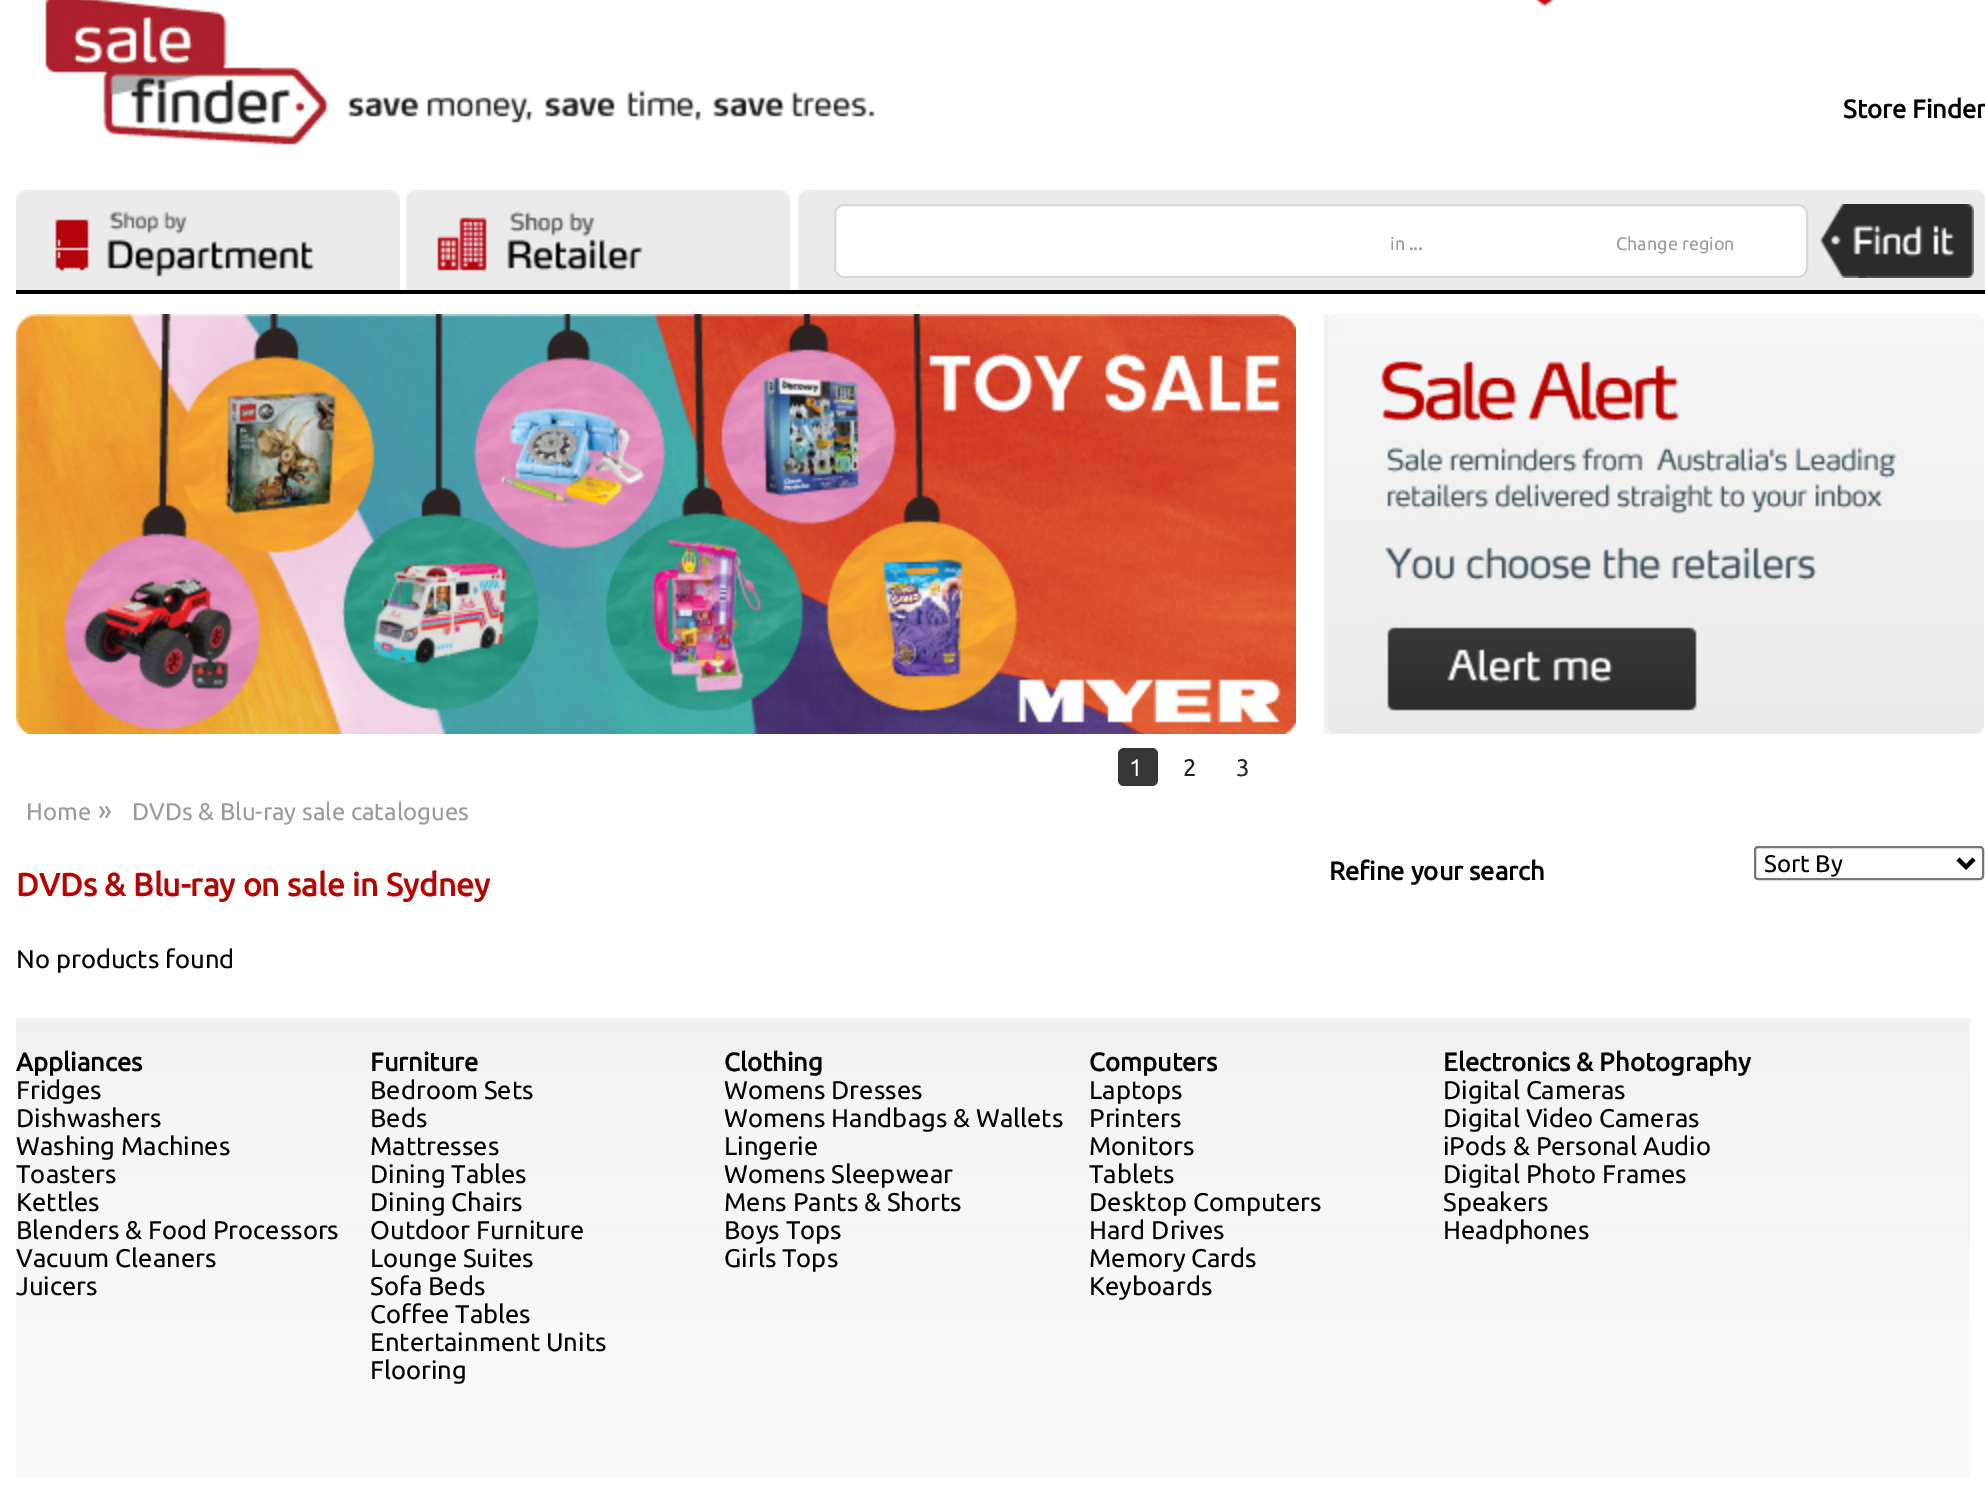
%!PS-Adobe-3.0
%%BoundingBox: 0 0 1985 1492
%%LanguageLevel: 3
%%Pages: 1
%%EndComments
%%BeginProlog
/setink { 3 { 255 div 3 1 roll } repeat setrgbcolor } def
/usefont { [ exch dup neg 0 0 3 -1 roll 0 0 ] selectfont } def
/drawtext { setink usefont moveto show } def
/fillbox { setink rectfill } def
/rrect { 5 dict begin { /r /h /w /y /x } { exch def } forall
  x r add y moveto x w add y 2 copy h add r arct x w add y h add x 1 index r arct
  x y h add x y r arct x y 2 copy exch w add exch r arct closepath end } def
/drawimage { 5 dict begin { /h /w /y /x /name } { exch def } forall
  gsave x y translate w h scale
  w h 8 [w 0 0 h 0 0] name (r) file false 3 colorimage grestore end } def
%%EndProlog
%%BeginSetup
<< /PageSize [1985 1492] >> setpagedevice
%%EndSetup
%%Page: 1 1
0 1492 translate 1 -1 scale
4 setmiterlimit
0 0 1985 1492 255 255 255 fillbox
16 290 1969 4 0 0 0 fillbox
(assets/img1.rgb) 45 0 830 145 drawimage
(assets/img2.rgb) 1535 0 20 6 drawimage
(Store Finder) 1843 118 /Ubuntu-Bold 25.6 0 0 0 drawtext
(assets/img3.rgb) 16 190 384 100 drawimage
(assets/img4.rgb) 406 190 384 100 drawimage
(assets/img5.rgb) 798 190 1187 100 drawimage
255 255 255 setink
835 205 972 72 9 rrect gsave fill grestore
216 216 216 setink
2 setlinewidth
stroke
(in) 1390 250 /Ubuntu-Regular 18 154 154 154 drawtext
(...) 1409 250 /Ubuntu-Bold 18 154 154 154 drawtext
(Change region) 1616 250 /Ubuntu-Regular 18 154 154 154 drawtext
(assets/img6.rgb) 1820 204 154 74 drawimage
1324 314 4 420 241 241 241 fillbox
(assets/img7.rgb) 1328 314 656 420 drawimage
(assets/img8.rgb) 16 314 1280 420 drawimage
54 54 54 setink
1118 748 40 38 6 rrect fill
(1) 1129 776 /Ubuntu-Regular 24 255 255 255 drawtext
(2) 1183 776 /Ubuntu-Regular 24 34 34 34 drawtext
(3) 1236 776 /Ubuntu-Regular 24 34 34 34 drawtext
(Home) 26 820 /Ubuntu-Regular 24 154 154 154 drawtext
(») 98 820 /Ubuntu-Regular 28 154 154 154 drawtext
(DVDs & Blu-ray sale catalogues) 132 820 /Ubuntu-Regular 24 154 154 154 drawtext
(DVDs & Blu-ray on sale in Sydney) 16 896 /Ubuntu-Bold 32 180 5 0 drawtext
(Refine your search) 1329 880 /Ubuntu-Bold 25.6 0 0 0 drawtext
118 118 118 setink
1755 847 228 32 3 rrect stroke
0 0 0 setink
4 setlinewidth
1958 859 moveto 1966 867 lineto 1974 859 lineto stroke
(Sort By) 1764 872 /Ubuntu-Regular 24 0 0 0 drawtext
(No products found) 16 968 /Ubuntu-Regular 25.6 0 0 0 drawtext
(assets/img9.rgb) 16 1018 1954 460 drawimage
(Appliances) 16 1071 /Ubuntu-Bold 25.6 0 0 0 drawtext
(Fridges) 16 1099 /Ubuntu-Regular 25.6 0 0 0 drawtext
(Dishwashers) 16 1127 /Ubuntu-Regular 25.6 0 0 0 drawtext
(Washing Machines) 16 1155 /Ubuntu-Regular 25.6 0 0 0 drawtext
(Toasters) 16 1183 /Ubuntu-Regular 25.6 0 0 0 drawtext
(Kettles) 16 1211 /Ubuntu-Regular 25.6 0 0 0 drawtext
(Blenders & Food Processors) 16 1239 /Ubuntu-Regular 25.6 0 0 0 drawtext
(Vacuum Cleaners) 16 1267 /Ubuntu-Regular 25.6 0 0 0 drawtext
(Juicers) 16 1295 /Ubuntu-Regular 25.6 0 0 0 drawtext
(Furniture) 370 1071 /Ubuntu-Bold 25.6 0 0 0 drawtext
(Bedroom Sets) 370 1099 /Ubuntu-Regular 25.6 0 0 0 drawtext
(Beds) 370 1127 /Ubuntu-Regular 25.6 0 0 0 drawtext
(Mattresses) 370 1155 /Ubuntu-Regular 25.6 0 0 0 drawtext
(Dining Tables) 370 1183 /Ubuntu-Regular 25.6 0 0 0 drawtext
(Dining Chairs) 370 1211 /Ubuntu-Regular 25.6 0 0 0 drawtext
(Outdoor Furniture) 370 1239 /Ubuntu-Regular 25.6 0 0 0 drawtext
(Lounge Suites) 370 1267 /Ubuntu-Regular 25.6 0 0 0 drawtext
(Sofa Beds) 370 1295 /Ubuntu-Regular 25.6 0 0 0 drawtext
(Coffee Tables) 370 1323 /Ubuntu-Regular 25.6 0 0 0 drawtext
(Entertainment Units) 370 1351 /Ubuntu-Regular 25.6 0 0 0 drawtext
(Flooring) 370 1379 /Ubuntu-Regular 25.6 0 0 0 drawtext
(Clothing) 724 1071 /Ubuntu-Bold 25.6 0 0 0 drawtext
(Womens Dresses) 724 1099 /Ubuntu-Regular 25.6 0 0 0 drawtext
(Womens Handbags & Wallets) 724 1127 /Ubuntu-Regular 25.6 0 0 0 drawtext
(Lingerie) 724 1155 /Ubuntu-Regular 25.6 0 0 0 drawtext
(Womens Sleepwear) 724 1183 /Ubuntu-Regular 25.6 0 0 0 drawtext
(Mens Pants & Shorts) 724 1211 /Ubuntu-Regular 25.6 0 0 0 drawtext
(Boys Tops) 724 1239 /Ubuntu-Regular 25.6 0 0 0 drawtext
(Girls Tops) 724 1267 /Ubuntu-Regular 25.6 0 0 0 drawtext
(Computers) 1089 1071 /Ubuntu-Bold 25.6 0 0 0 drawtext
(Laptops) 1089 1099 /Ubuntu-Regular 25.6 0 0 0 drawtext
(Printers) 1089 1127 /Ubuntu-Regular 25.6 0 0 0 drawtext
(Monitors) 1089 1155 /Ubuntu-Regular 25.6 0 0 0 drawtext
(Tablets) 1089 1183 /Ubuntu-Regular 25.6 0 0 0 drawtext
(Desktop Computers) 1089 1211 /Ubuntu-Regular 25.6 0 0 0 drawtext
(Hard Drives) 1089 1239 /Ubuntu-Regular 25.6 0 0 0 drawtext
(Memory Cards) 1089 1267 /Ubuntu-Regular 25.6 0 0 0 drawtext
(Keyboards) 1089 1295 /Ubuntu-Regular 25.6 0 0 0 drawtext
(Electronics & Photography) 1443 1071 /Ubuntu-Bold 25.6 0 0 0 drawtext
(Digital Cameras) 1443 1099 /Ubuntu-Regular 25.6 0 0 0 drawtext
(Digital Video Cameras) 1443 1127 /Ubuntu-Regular 25.6 0 0 0 drawtext
(iPods & Personal Audio) 1443 1155 /Ubuntu-Regular 25.6 0 0 0 drawtext
(Digital Photo Frames) 1443 1183 /Ubuntu-Regular 25.6 0 0 0 drawtext
(Speakers) 1443 1211 /Ubuntu-Regular 25.6 0 0 0 drawtext
(Headphones) 1443 1239 /Ubuntu-Regular 25.6 0 0 0 drawtext
showpage
%%EOF
